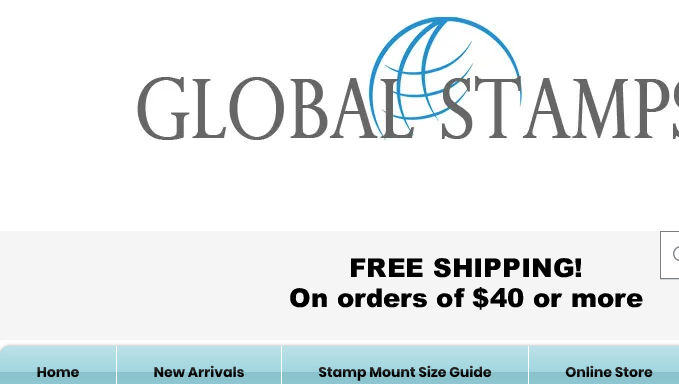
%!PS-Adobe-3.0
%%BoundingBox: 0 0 679 384
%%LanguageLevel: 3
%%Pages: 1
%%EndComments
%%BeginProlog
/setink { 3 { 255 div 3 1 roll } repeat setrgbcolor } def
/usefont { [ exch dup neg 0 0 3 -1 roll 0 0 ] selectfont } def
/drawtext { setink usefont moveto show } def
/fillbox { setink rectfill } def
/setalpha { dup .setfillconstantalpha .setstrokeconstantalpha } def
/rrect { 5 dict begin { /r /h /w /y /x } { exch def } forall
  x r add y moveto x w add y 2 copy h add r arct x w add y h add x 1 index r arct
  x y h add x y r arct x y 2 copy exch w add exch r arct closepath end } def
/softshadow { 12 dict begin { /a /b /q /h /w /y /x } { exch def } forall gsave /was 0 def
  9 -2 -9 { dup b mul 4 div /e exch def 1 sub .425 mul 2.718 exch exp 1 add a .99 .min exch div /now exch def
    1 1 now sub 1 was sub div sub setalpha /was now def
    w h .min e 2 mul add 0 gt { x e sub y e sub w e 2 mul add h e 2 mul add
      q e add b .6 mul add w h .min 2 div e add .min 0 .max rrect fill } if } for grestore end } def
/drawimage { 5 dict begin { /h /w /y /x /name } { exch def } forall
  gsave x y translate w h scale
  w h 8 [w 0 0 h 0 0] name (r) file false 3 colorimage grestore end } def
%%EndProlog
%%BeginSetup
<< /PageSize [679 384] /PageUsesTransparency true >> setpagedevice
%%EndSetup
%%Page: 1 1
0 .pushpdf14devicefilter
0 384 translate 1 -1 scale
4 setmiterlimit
0 0 679 384 255 255 255 fillbox
(assets/img1.rgb) 136 15 543 126 drawimage
0 231 679 109 245 245 245 fillbox
(FREE SHIPPING!) 349 277 /arial-Black 26 0 0 0 drawtext
(On orders of $40 or more) 289 307 /arial-Black 26 0 0 0 drawtext
123 126 129 setink
660.5 231.5 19 47 rectstroke
661 232 18 46 255 255 255 fillbox
(assets/img2.rgb) 673 246 6 15 drawimage
0 0 0 setink
0 347 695 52 10 2 0.6 softshadow
(assets/img3.rgb) 0 346 10 10 drawimage
149 208 219 setink
10 346 moveto 116 346 lineto 116 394 lineto 10 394 lineto 4.5 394 0 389.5 0 384 curveto 0 356 lineto 0 350.5 4.5 346 10 346 curveto closepath fill
(Home) 37 377 /Poppins-Bold 14 0 0 0 drawtext
(assets/img4.rgb) 0 346 116 38 drawimage
117 346 164 38 149 208 219 fillbox
116 346 1 38 255 255 255 fillbox
(New Arrivals) 154 377 /Poppins-Bold 14 0 0 0 drawtext
(assets/img5.rgb) 117 346 164 38 drawimage
282 346 246 38 149 208 219 fillbox
281 346 1 38 255 255 255 fillbox
(Stamp Mount Size Guide) 318 377 /Poppins-Bold 14 0 0 0 drawtext
(assets/img6.rgb) 282 346 246 38 drawimage
529 346 150 38 149 208 219 fillbox
528 346 1 38 255 255 255 fillbox
(Online Store) 565 377 /Poppins-Bold 14 0 0 0 drawtext
(assets/img7.rgb) 529 346 150 38 drawimage
.poppdf14devicefilter showpage
%%EOF
